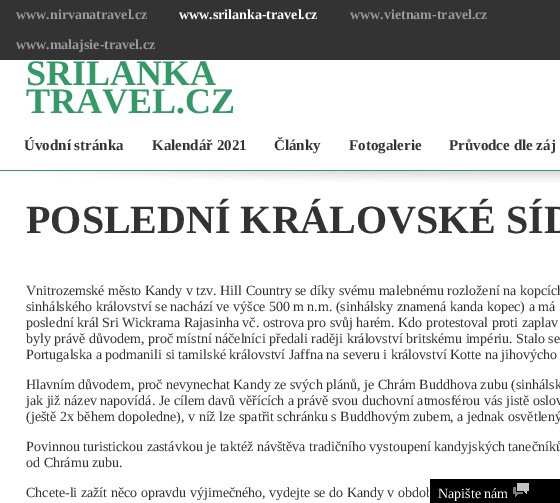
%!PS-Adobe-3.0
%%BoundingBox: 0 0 560 503
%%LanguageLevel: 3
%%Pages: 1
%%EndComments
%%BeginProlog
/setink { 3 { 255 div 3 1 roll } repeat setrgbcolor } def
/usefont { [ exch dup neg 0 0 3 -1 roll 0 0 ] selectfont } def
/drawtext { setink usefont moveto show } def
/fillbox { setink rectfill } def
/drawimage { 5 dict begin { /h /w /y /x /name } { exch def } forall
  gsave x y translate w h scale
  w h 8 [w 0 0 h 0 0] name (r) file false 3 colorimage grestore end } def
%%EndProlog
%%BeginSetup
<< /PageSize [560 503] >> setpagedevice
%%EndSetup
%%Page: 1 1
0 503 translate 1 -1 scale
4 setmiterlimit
0 0 560 503 255 255 255 fillbox
0 0 560 60 51 51 51 fillbox
(www.nirvanatravel.cz) 16 19 /LiberationSerif-Bold 14 153 153 153 drawtext
(www.srilanka-travel.cz) 179 19 /LiberationSerif-Bold 14 255 255 255 drawtext
(www.vietnam-travel.cz) 350 19 /LiberationSerif-Bold 14 153 153 153 drawtext
(www.malajsie-travel.cz) 16 49 /LiberationSerif-Bold 14 153 153 153 drawtext
0 170 560 1 51 153 102 fillbox
(SRILANKA) 26 85 /LiberationSerif-Bold 36 51 153 102 drawtext
(TRAVEL.CZ) 26 113 /LiberationSerif-Bold 36 51 153 102 drawtext
(Úvodní stránka) 24 150 /LiberationSerif-Bold 15 51 51 51 drawtext
(Kalendář 2021) 152 150 /LiberationSerif-Bold 15 51 51 51 drawtext
(Články) 274 150 /LiberationSerif-Bold 15 51 51 51 drawtext
(Fotogalerie) 349 150 /LiberationSerif-Bold 15 51 51 51 drawtext
(Průvodce dle záj) 449 150 /LiberationSerif-Bold 15 51 51 51 drawtext
(assets/img1.rgb) 38 171 522 12 drawimage
(POSLEDNÍ KRÁLOVSKÉ SÍD) 26 233 /LiberationSerif-Bold 40 51 51 51 drawtext
(Vnitrozemské město Kandy v tzv. Hill Country se díky svému malebnému rozložení na kopcích) 26 295 /LiberationSerif-Regular 14 51 51 51 drawtext
(sinhálského království se nachází ve výšce 500 m n.m. \(sinhálsky znamená kanda kopec\) a má) 26 311 /LiberationSerif-Regular 14 51 51 51 drawtext
(poslední král Sri Wickrama Rajasinha vč. ostrova pro svůj harém. Kdo protestoval proti zaplav) 26 327 /LiberationSerif-Regular 14 51 51 51 drawtext
(byly právě důvodem, proč místní náčelníci předali raději království britskému impériu. Stalo se) 26 343 /LiberationSerif-Regular 14 51 51 51 drawtext
(Portugalska a podmanili si tamilské království Jaffna na severu i království Kotte na jihovýcho) 26 359 /LiberationSerif-Regular 14 51 51 51 drawtext
(Hlavním důvodem, proč nevynechat Kandy ze svých plánů, je Chrám Buddhova zubu \(sinhálsk) 26 389 /LiberationSerif-Regular 14 51 51 51 drawtext
(jak již název napovídá. Je cílem davů věřících a právě svou duchovní atmosférou vás jistě oslov) 26 405 /LiberationSerif-Regular 14 51 51 51 drawtext
(\(ještě 2x během dopoledne\), v níž lze spatřit schránku s Buddhovým zubem, a jednak osvětlený) 26 421 /LiberationSerif-Regular 14 51 51 51 drawtext
(Povinnou turistickou zastávkou je taktéž návštěva tradičního vystoupení kandyjských tanečníků) 26 451 /LiberationSerif-Regular 14 51 51 51 drawtext
(od Chrámu zubu.) 26 467 /LiberationSerif-Regular 14 51 51 51 drawtext
(Chcete-li zažít něco opravdu výjimečného, vydejte se do Kandy v obdob) 26 497 /LiberationSerif-Regular 14 51 51 51 drawtext
430 479 130 24 0 0 0 fillbox
429 490 1 13 255 255 255 fillbox
(Napište nám) 438 498 /LiberationSerif-Regular 14 255 255 255 drawtext
(assets/img2.rgb) 513 483 16 14 drawimage
showpage
%%EOF
